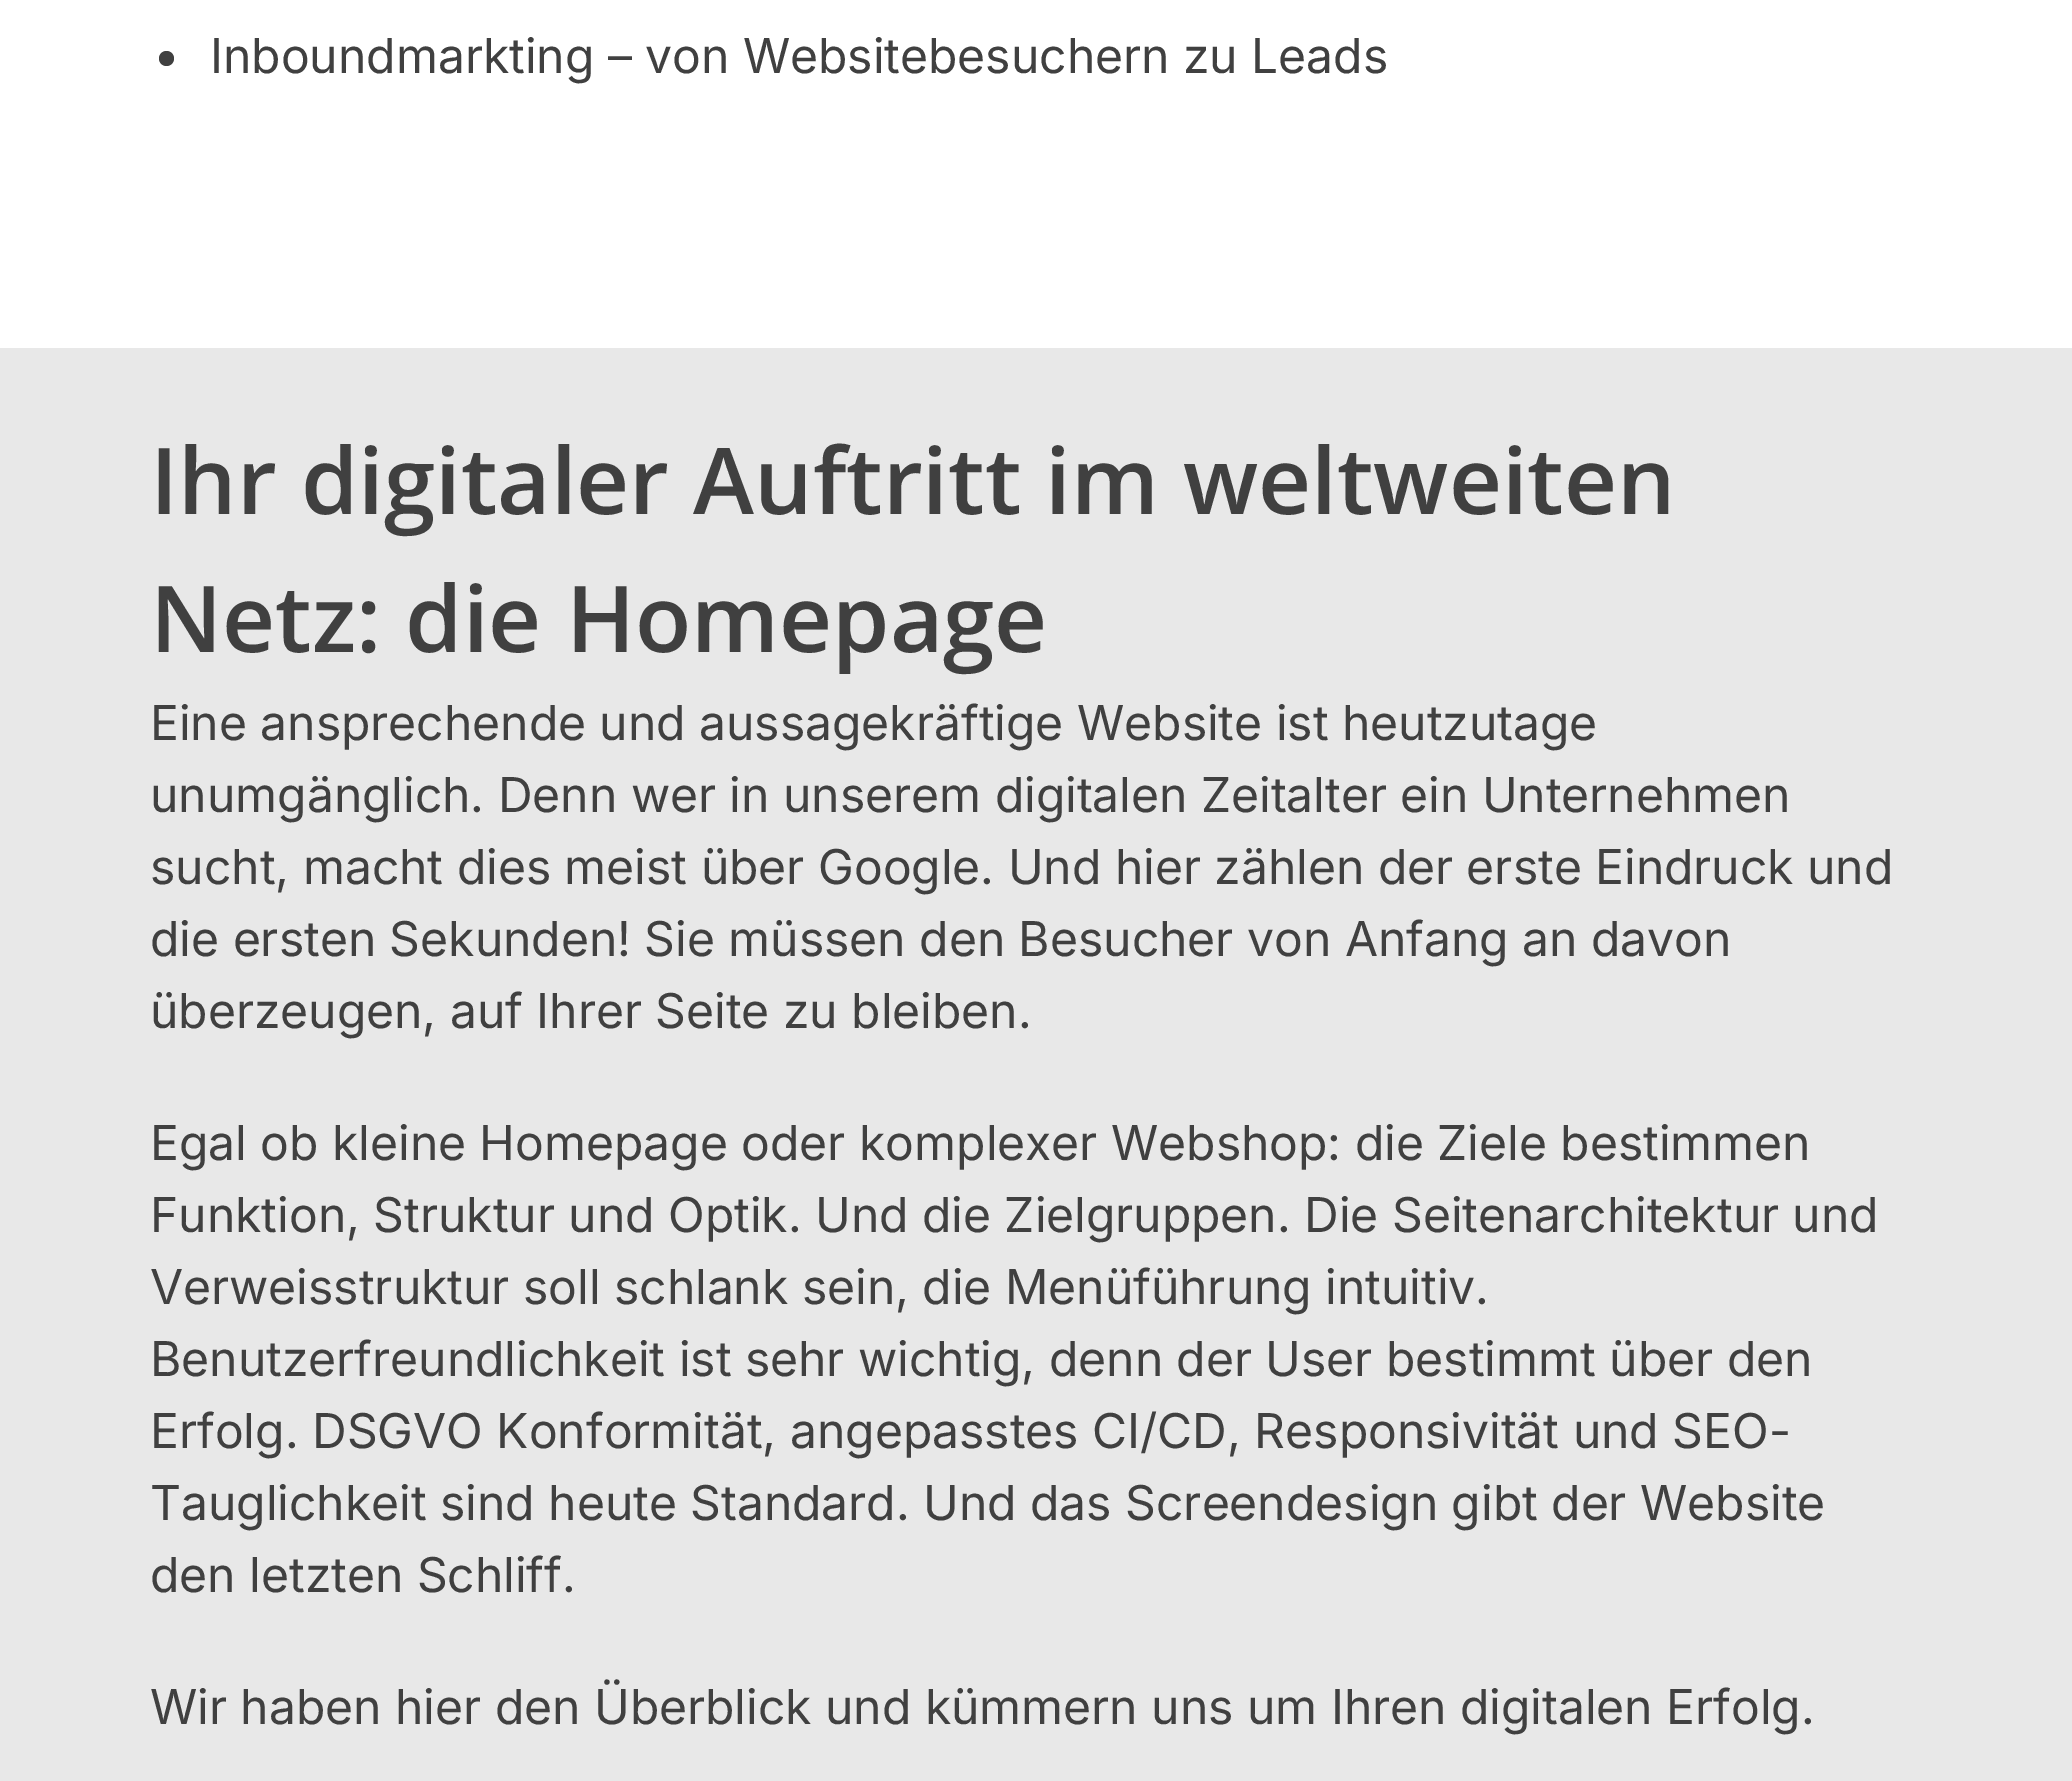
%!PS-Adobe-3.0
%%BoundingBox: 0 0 2072 1781
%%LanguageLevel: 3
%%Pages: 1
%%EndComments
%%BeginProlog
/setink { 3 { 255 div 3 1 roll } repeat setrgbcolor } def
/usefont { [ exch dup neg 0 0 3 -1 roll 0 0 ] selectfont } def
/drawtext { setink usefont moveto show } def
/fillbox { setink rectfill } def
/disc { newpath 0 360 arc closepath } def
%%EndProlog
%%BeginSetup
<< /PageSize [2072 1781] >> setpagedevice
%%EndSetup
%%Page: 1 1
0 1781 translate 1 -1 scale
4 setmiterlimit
0 0 2072 1781 255 255 255 fillbox
64 64 64 setink
166.5 58.5 7.5 disc fill
(Inboundmarkting – von Websitebesuchern zu Leads) 210 73 /Inter-Regular 48 64 64 64 drawtext
0 348 2072 1433 232 232 232 fillbox
(Ihr digitaler Auftritt im weltweiten) 150 514 /OpenSans-SemiBold 92.25 64 64 64 drawtext
(Netz: die Homepage) 150 652 /OpenSans-SemiBold 92.25 64 64 64 drawtext
(Eine ansprechende und aussagekräftige Website ist heutzutage) 150 740 /Inter-Regular 48 64 64 64 drawtext
(unumgänglich. Denn wer in unserem digitalen Zeitalter ein Unternehmen) 150 812 /Inter-Regular 48 64 64 64 drawtext
(sucht, macht dies meist über Google. Und hier zählen der erste Eindruck und) 150 884 /Inter-Regular 48 64 64 64 drawtext
(die ersten Sekunden! Sie müssen den Besucher von Anfang an davon) 150 956 /Inter-Regular 48 64 64 64 drawtext
(überzeugen, auf Ihrer Seite zu bleiben.) 150 1028 /Inter-Regular 48 64 64 64 drawtext
(Egal ob kleine Homepage oder komplexer Webshop: die Ziele bestimmen) 150 1160 /Inter-Regular 48 64 64 64 drawtext
(Funktion, Struktur und Optik. Und die Zielgruppen. Die Seitenarchitektur und) 150 1232 /Inter-Regular 48 64 64 64 drawtext
(Verweisstruktur soll schlank sein, die Menüführung intuitiv.) 150 1304 /Inter-Regular 48 64 64 64 drawtext
(Benutzerfreundlichkeit ist sehr wichtig, denn der User bestimmt über den) 150 1376 /Inter-Regular 48 64 64 64 drawtext
(Erfolg. DSGVO Konformität, angepasstes CI/CD, Responsivität und SEO-) 150 1448 /Inter-Regular 48 64 64 64 drawtext
(Tauglichkeit sind heute Standard. Und das Screendesign gibt der Website) 150 1520 /Inter-Regular 48 64 64 64 drawtext
(den letzten Schliff.) 150 1592 /Inter-Regular 48 64 64 64 drawtext
(Wir haben hier den Überblick und kümmern uns um Ihren digitalen Erfolg.) 150 1724 /Inter-Regular 48 64 64 64 drawtext
showpage
%%EOF
